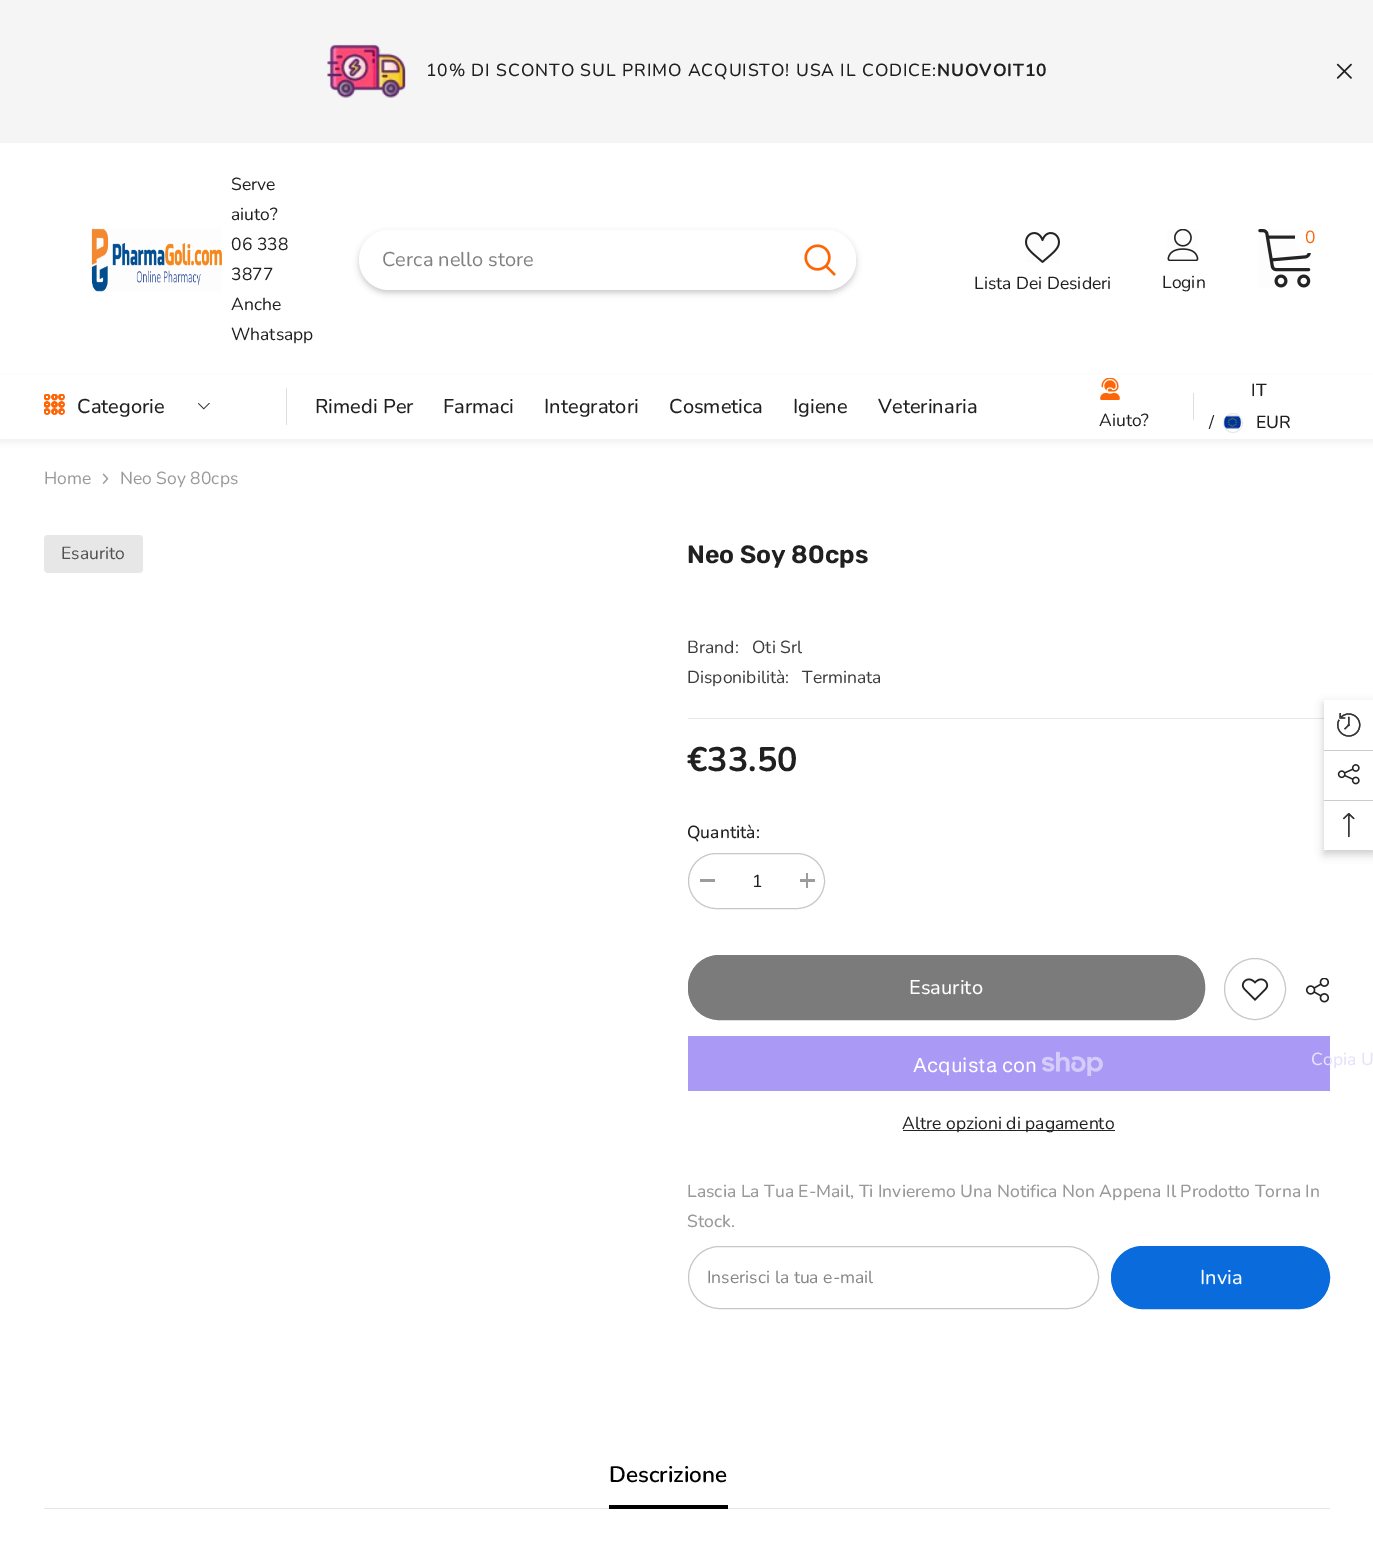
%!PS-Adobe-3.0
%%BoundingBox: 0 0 1373 1548
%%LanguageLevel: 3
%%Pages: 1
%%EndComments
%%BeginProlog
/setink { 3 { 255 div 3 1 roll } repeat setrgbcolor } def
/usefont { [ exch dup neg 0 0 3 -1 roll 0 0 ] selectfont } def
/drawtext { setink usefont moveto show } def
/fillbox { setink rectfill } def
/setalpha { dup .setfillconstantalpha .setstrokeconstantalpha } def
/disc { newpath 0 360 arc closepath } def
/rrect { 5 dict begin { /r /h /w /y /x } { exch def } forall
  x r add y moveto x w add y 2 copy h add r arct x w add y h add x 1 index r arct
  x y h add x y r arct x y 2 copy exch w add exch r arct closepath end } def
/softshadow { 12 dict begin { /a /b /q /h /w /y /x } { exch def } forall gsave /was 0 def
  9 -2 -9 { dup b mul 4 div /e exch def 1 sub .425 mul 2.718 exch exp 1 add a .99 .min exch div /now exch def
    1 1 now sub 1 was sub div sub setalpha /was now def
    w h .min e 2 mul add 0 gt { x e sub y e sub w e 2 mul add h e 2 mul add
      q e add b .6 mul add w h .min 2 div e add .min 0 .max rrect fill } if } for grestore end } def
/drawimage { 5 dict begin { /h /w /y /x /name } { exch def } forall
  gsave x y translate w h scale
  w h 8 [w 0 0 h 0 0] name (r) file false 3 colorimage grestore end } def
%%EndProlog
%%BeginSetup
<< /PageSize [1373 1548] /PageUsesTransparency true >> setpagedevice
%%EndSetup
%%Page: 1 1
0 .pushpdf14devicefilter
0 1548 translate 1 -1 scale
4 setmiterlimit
0 0 1373 1548 255 255 255 fillbox
0 0 1373 143 245 245 245 fillbox
(assets/img1.rgb) 327 44 79 54 drawimage
/Nunito-Medium 17.5 usefont
32 32 32 setink
426 76 moveto 0.9 0 (10% DI SCONTO SUL PRIMO ACQUISTO! USA IL CODICE:) ashow
/Nunito-Bold 17.5 usefont
937 76 moveto 0.9 0 (NUOVOIT10) ashow
(assets/img2.rgb) 1336 63 16 16 drawimage
(assets/img3.rgb) 91 228 131 64 drawimage
(Serve) 231 190 /Nunito-Regular 17.5 32 32 32 drawtext
(aiuto?) 231 220 /Nunito-Regular 17.5 32 32 32 drawtext
(06 338) 231 250 /Nunito-Regular 17.5 32 32 32 drawtext
(3877) 231 280 /Nunito-Regular 17.5 32 32 32 drawtext
(Anche) 231 310 /Nunito-Regular 17.5 32 32 32 drawtext
(Whatsapp) 231 340 /Nunito-Regular 17.5 32 32 32 drawtext
0 0 0 setink
359 233 497 60 30 3 0.2 softshadow
255 255 255 setink
359 230 497 60 30 rrect fill
(Cerca nello store) 382 266 /Nunito-Regular 20 128 128 128 drawtext
255 255 255 setink
784 230 moveto 826 230 lineto 842.5 230 856 243.5 856 260 curveto 856 276.5 842.5 290 826 290 curveto 784 290 lineto closepath fill
(assets/img4.rgb) 804 244 32 32 drawimage
(assets/img5.rgb) 1258 229 53 59 drawimage
1310 238 15 disc fill
(0) 1305 243 /Nunito-Regular 17.5 253 101 6 drawtext
(assets/img6.rgb) 1025 232 35 31 drawimage
(Lista Dei Desideri) 974 289 /Nunito-Regular 17.5 32 32 32 drawtext
(assets/img7.rgb) 1167 229 32 32 drawimage
(Login) 1162 288 /Nunito-Regular 17.5 32 32 32 drawtext
0 0 0 setink
0 378 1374 65 0 3 0.05 softshadow
0 375 1373 64 255 255 255 fillbox
(assets/img8.rgb) 44 394 21 21 drawimage
(Categorie) 77 413 /Nunito-Medium 20 32 32 32 drawtext
(assets/img9.rgb) 198 403 12 7 drawimage
286 388 1 37 222 222 222 fillbox
(Rimedi Per) 315 413 /Nunito-Medium 20 32 32 32 drawtext
(Farmaci) 443 413 /Nunito-Medium 20 32 32 32 drawtext
(Integratori) 544 413 /Nunito-Medium 20 32 32 32 drawtext
(Cosmetica) 669 413 /Nunito-Medium 20 32 32 32 drawtext
(Igiene) 793 413 /Nunito-Medium 20 32 32 32 drawtext
(Veterinaria) 878 413 /Nunito-Medium 20 32 32 32 drawtext
(assets/img10.rgb) 1100 378 20 22 drawimage
(Aiuto?) 1099 426 /Nunito-Regular 17.5 32 32 32 drawtext
1193 393 1 27 222 222 222 fillbox
(IT) 1251 396 /Nunito-Medium 17.5 32 32 32 drawtext
(/) 1209 428 /Nunito-Regular 17.5 32 32 32 drawtext
233 233 233 setink
1233 423 9.5 disc stroke
(assets/img11.rgb) 1224 415 18 14 drawimage
(EUR) 1256 428 /Nunito-Medium 17.5 32 32 32 drawtext
(Home) 44 484 /Nunito-Regular 17.5 153 153 153 drawtext
(assets/img12.rgb) 102 473 7 11 drawimage
(Neo Soy 80cps) 120 484 /Nunito-Regular 17.5 153 153 153 drawtext
231 231 231 setink
44 535 99 38 4 rrect fill
(Esaurito) 61 559 /Nunito-Regular 17.5 80 80 80 drawtext
(Neo Soy 80cps) 687 563 /Rubik-SemiBold 25 32 32 32 drawtext
688 718 642 1 230 230 230 fillbox
(Brand:) 687 653 /Nunito-Regular 17.5 60 60 60 drawtext
(Oti Srl) 752 653 /Nunito-Regular 17.5 60 60 60 drawtext
(Disponibilità:) 687 683 /Nunito-Regular 17.5 60 60 60 drawtext
(Terminata) 802 683 /Nunito-Regular 17.5 60 60 60 drawtext
(€33.50) 687 771 /Nunito-Bold 34 32 32 32 drawtext
(Quantità:) 687 838 /Nunito-Medium 17.5 32 32 32 drawtext
199 199 199 setink
688.5 853.5 136 55 27.5 rrect stroke
700 879 15 3 156 156 156 fillbox
(1) 752 887 /Nunito-Regular 17.5 32 32 32 drawtext
800 879 15 3 156 156 156 fillbox
806 873 2 15 156 156 156 fillbox
123 123 123 setink
688.5 955.5 516 64 30.5 rrect gsave fill grestore
stroke
(Esaurito) 909 994 /Nunito-Medium 20 255 255 255 drawtext
199 199 199 setink
1255 989 30.5 disc stroke
(assets/img13.rgb) 1241 978 28 23 drawimage
(assets/img14.rgb) 1305 978 25 25 drawimage
688 1036 642 55 170 153 245 fillbox
(Copia U) 1311 1065 /Nunito-Medium 17.5 230 225 252 drawtext
(Acquista con) 913 1072 /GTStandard-Regular 20 255 255 255 drawtext
(assets/img15.rgb) 1042 1051 61 25 drawimage
903 1130 212 1 35 35 35 fillbox
(Altre opzioni di pagamento) 902 1129 /Nunito-Regular 17.5 32 32 32 drawtext
(Lascia La Tua E-Mail, Ti Invieremo Una Notifica Non Appena Il Prodotto Torna In) 687 1197 /Nunito-Medium 17.5 153 153 153 drawtext
(Stock.) 687 1227 /Nunito-Medium 17.5 153 153 153 drawtext
199 199 199 setink
688.5 1246.5 410 62 31 rrect stroke
(Inserisci la tua e-mail) 707 1283 /Nunito-Regular 17.5 134 134 134 drawtext
10 108 220 setink
1111.5 1246.5 218 62 31 rrect gsave fill grestore
stroke
(Invia) 1200 1284 /Nunito-Medium 20 255 255 255 drawtext
44 1508 1286 1 230 230 230 fillbox
(Descrizione) 609 1482 /Nunito-SemiBold 22.5 0 0 0 drawtext
609 1505 119 4 0 0 0 fillbox
1324 704 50 150 0 4.5 0.2 softshadow
1324 700 49 150 255 255 255 fillbox
(assets/img16.rgb) 1337 713 24 24 drawimage
1324 750 49 1 204 204 204 fillbox
(assets/img17.rgb) 1337 764 23 21 drawimage
1324 800 49 1 204 204 204 fillbox
(assets/img18.rgb) 1343 813 12 25 drawimage
.poppdf14devicefilter showpage
%%EOF
